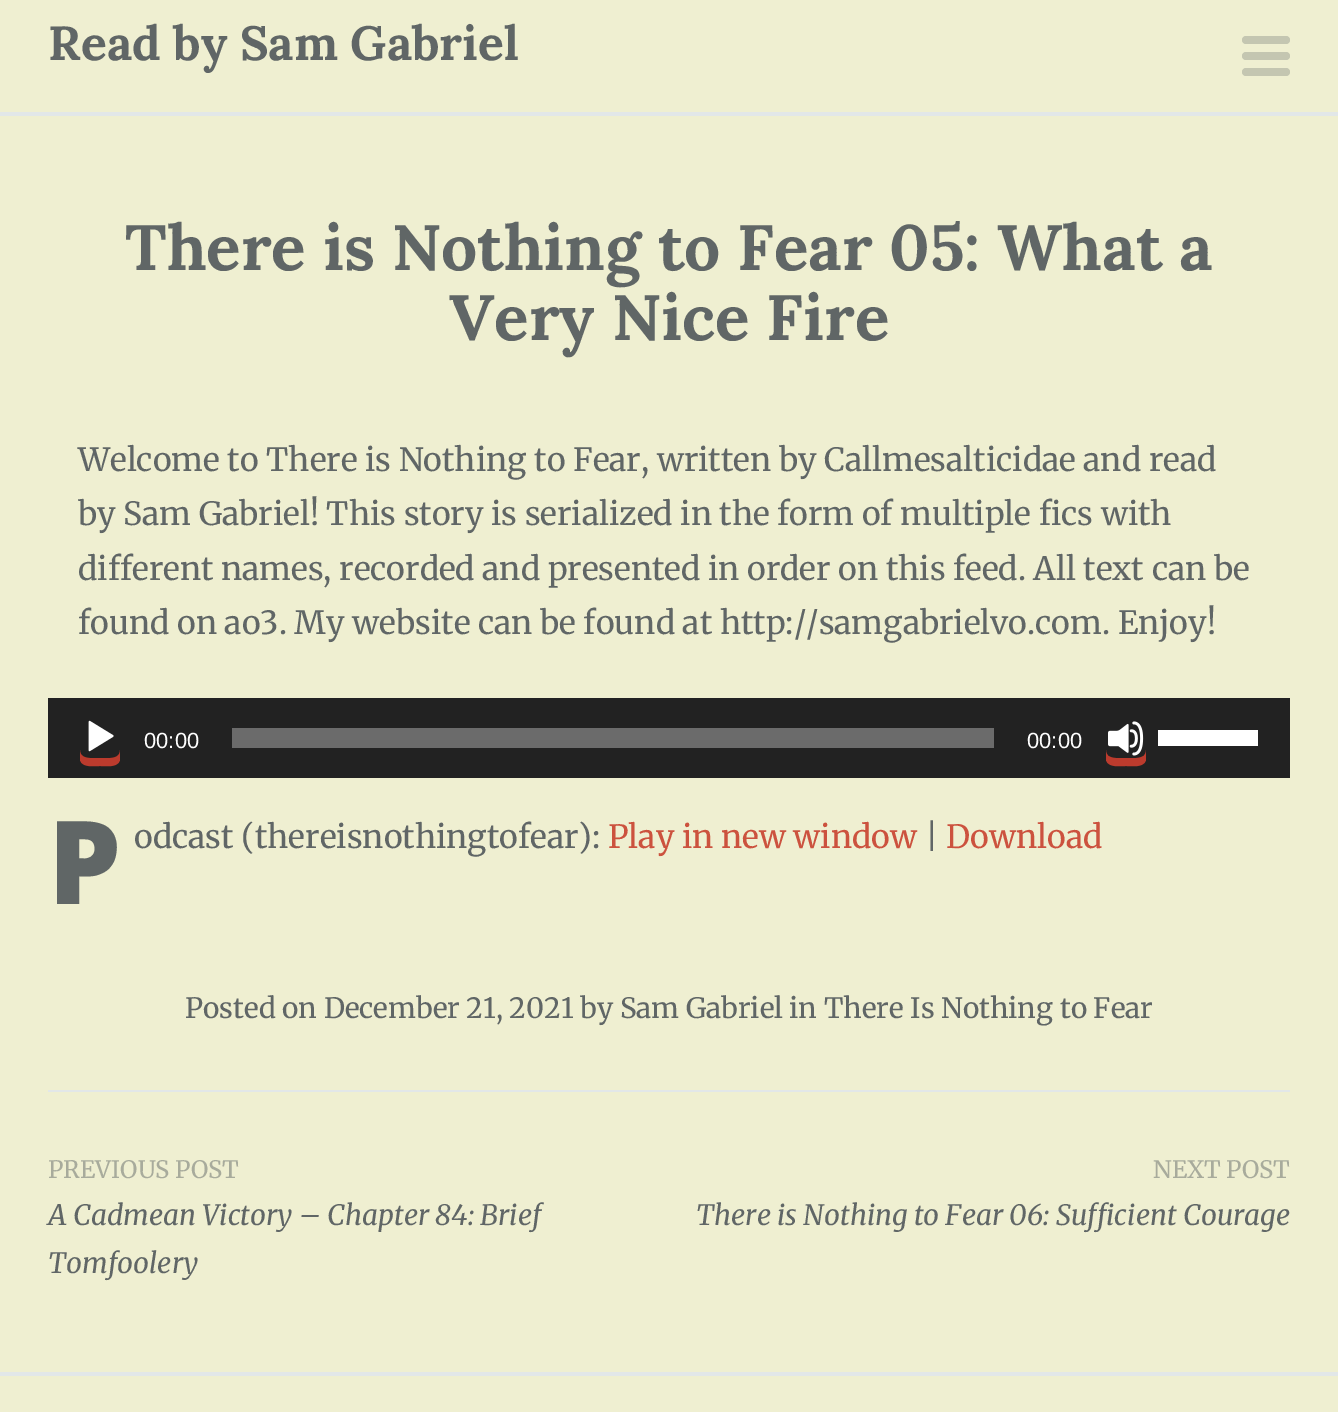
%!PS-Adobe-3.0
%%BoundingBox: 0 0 1338 1412
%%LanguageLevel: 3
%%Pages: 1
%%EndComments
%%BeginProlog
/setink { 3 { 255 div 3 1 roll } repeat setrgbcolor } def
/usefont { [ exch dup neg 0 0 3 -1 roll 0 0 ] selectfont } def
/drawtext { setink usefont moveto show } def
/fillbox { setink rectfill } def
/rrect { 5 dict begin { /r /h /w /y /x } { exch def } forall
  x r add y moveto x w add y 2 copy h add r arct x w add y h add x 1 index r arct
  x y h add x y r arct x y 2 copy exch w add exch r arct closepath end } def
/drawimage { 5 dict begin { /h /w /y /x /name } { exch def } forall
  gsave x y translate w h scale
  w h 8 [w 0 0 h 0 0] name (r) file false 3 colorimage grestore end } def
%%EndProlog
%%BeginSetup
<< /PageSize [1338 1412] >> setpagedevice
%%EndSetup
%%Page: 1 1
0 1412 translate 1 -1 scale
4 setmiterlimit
0 0 1338 1412 239 239 209 fillbox
0 112 1338 4 226 231 232 fillbox
(Read by Sam Gabriel) 48 60 /Lora-Bold 48 96 102 102 drawtext
(There is Nothing to Fear 05: What a) 125 270 /Lora-Bold 64 96 102 102 drawtext
(Very Nice Fire) 449 340 /Lora-Bold 64 96 102 102 drawtext
(Welcome to There is Nothing to Fear, written by Callmesalticidae and read) 78 471 /Merriweather-Regular 32 96 102 102 drawtext
(by Sam Gabriel! This story is serialized in the form of multiple fics with) 78 525 /Merriweather-Regular 32 96 102 102 drawtext
(different names, recorded and presented in order on this feed. All text can be) 78 580 /Merriweather-Regular 32 96 102 102 drawtext
(found on ao3. My website can be found at http://samgabrielvo.com. Enjoy!) 78 634 /Merriweather-Regular 32 96 102 102 drawtext
48 698 1242 80 34 34 34 fillbox
188 59 45 setink
80 750 moveto 80 760 lineto 82 768 94 766 100 766 curveto 106 766 118 768 120 760 curveto 120 750 lineto 120 760 107 758 100 758 curveto 93 758 80 760 80 750 curveto closepath fill
(assets/img1.rgb) 88 720 26 32 drawimage
(00:00) 144 748 /LiberationSans-Regular 22 255 255 255 drawtext
232 728 762 20 107 107 107 fillbox
(00:00) 1027 748 /LiberationSans-Regular 22 255 255 255 drawtext
188 59 45 setink
1106 750 moveto 1106 760 lineto 1108 768 1120 766 1126 766 curveto 1132 766 1144 768 1146 760 curveto 1146 750 lineto 1146 760 1133 758 1126 758 curveto 1119 758 1106 760 1106 750 curveto closepath fill
(assets/img2.rgb) 1108 721 36 35 drawimage
1158 730 100 16 255 255 255 fillbox
(P) 48 904 /NotoSans-Black 116 96 102 102 drawtext
(odcast \(thereisnothingtofear\):) 134 848 /Merriweather-Regular 32 96 102 102 drawtext
(Play in new window) 608 848 /Merriweather-Regular 32 204 82 62 drawtext
(|) 925 848 /Merriweather-Regular 32 96 102 102 drawtext
(Download) 946 848 /Merriweather-Regular 32 204 82 62 drawtext
(Posted on December 21, 2021 by Sam Gabriel in There Is Nothing to Fear) 185 1018 /Merriweather-Regular 28 96 102 102 drawtext
48 1090 1242 2 226 231 232 fillbox
(PREVIOUS POST) 48 1178 /Merriweather-Regular 24 168 171 156 drawtext
(A Cadmean Victory – Chapter 84: Brief) 48 1225 /Merriweather-Italic 28 96 102 102 drawtext
(Tomfoolery) 48 1273 /Merriweather-Italic 28 96 102 102 drawtext
(NEXT POST) 1153 1178 /Merriweather-Regular 24 168 171 156 drawtext
(There is Nothing to Fear 06: Sufficient Courage) 696 1225 /Merriweather-Italic 28 96 102 102 drawtext
0 1372 1338 4 226 231 232 fillbox
196 198 177 setink
1242 52 48 8 4 rrect fill
1242 36 48 8 4 rrect fill
1242 68 48 8 4 rrect fill
showpage
%%EOF
